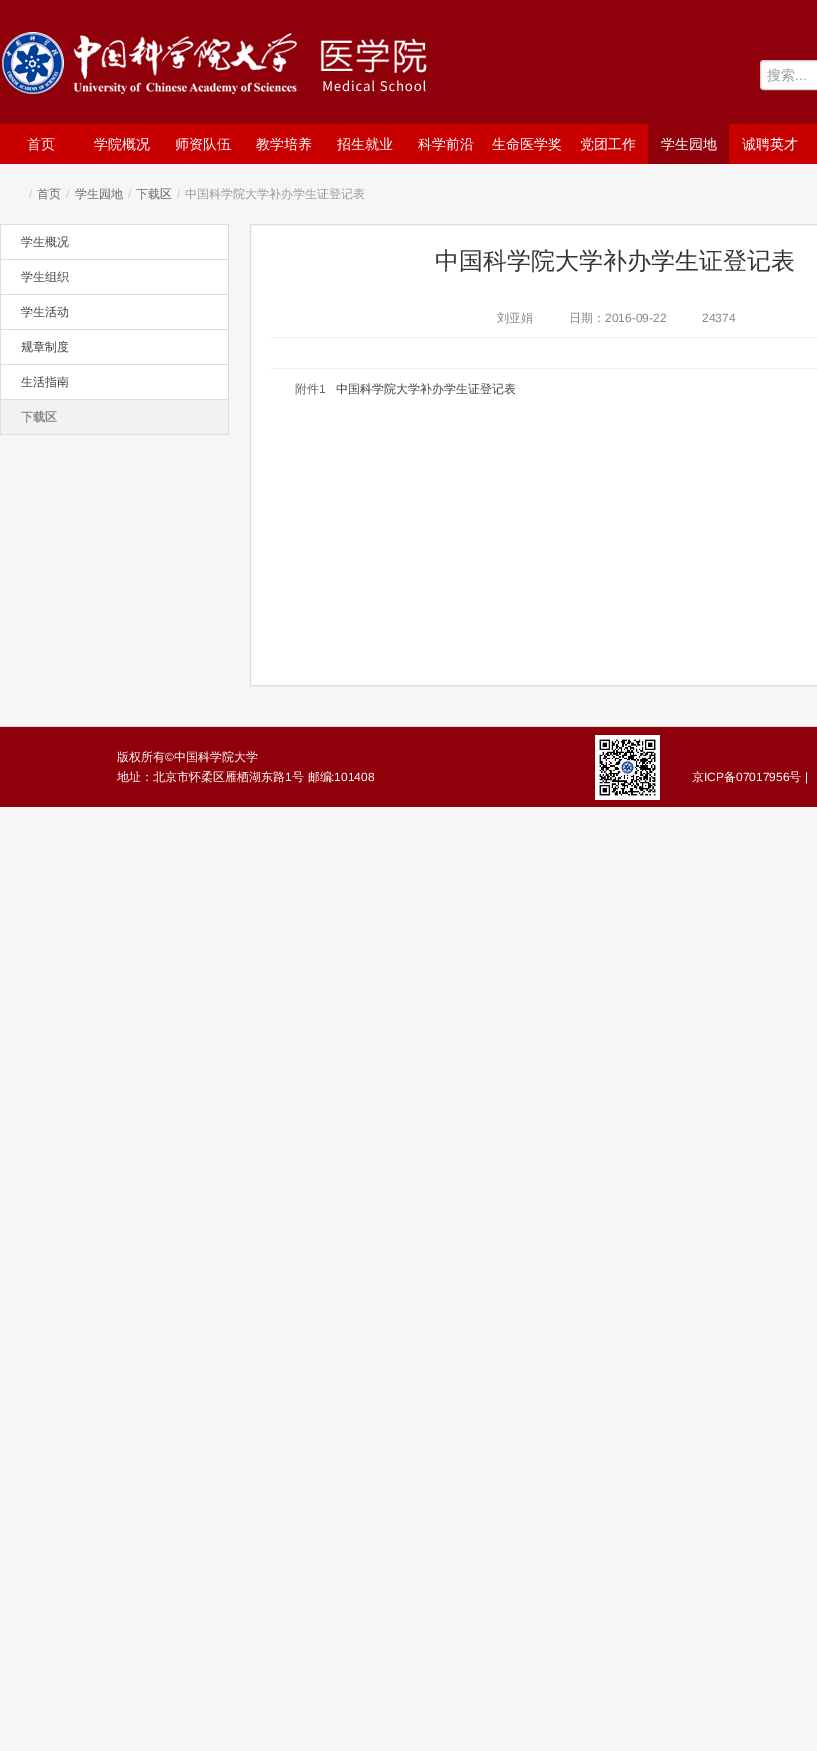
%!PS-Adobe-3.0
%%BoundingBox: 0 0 817 1751
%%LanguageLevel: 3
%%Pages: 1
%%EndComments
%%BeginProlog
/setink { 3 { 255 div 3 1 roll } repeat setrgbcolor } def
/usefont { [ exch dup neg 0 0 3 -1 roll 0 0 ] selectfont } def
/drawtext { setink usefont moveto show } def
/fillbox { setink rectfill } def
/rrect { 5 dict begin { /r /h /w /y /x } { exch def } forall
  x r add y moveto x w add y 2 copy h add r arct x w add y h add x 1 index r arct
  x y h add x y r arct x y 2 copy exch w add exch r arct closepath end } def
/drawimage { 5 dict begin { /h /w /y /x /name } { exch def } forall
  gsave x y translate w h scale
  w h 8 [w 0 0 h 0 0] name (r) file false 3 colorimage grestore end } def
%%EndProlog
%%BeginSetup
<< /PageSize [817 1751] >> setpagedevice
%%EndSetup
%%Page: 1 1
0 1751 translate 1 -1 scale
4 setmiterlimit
0 0 817 1751 246 246 246 fillbox
0 0 817 124 143 0 11 fillbox
(assets/img1.rgb) 2 32 295 62 drawimage
(assets/img2.rgb) 320 38 107 54 drawimage
255 255 255 setink
760 60 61 30 4 rrect fill
236 236 236 setink
764 62 moveto 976 62 lineto 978 62 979 63 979 65 curveto 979 64 lineto 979 62 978 61 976 61 curveto 764 61 lineto 762 61 761 62 761 64 curveto 761 65 lineto 761 63 762 62 764 62 curveto closepath fill
204 204 204 setink
760.5 60.5 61 29 3.5 rrect stroke
(搜索) 767 80 /WenQuanYiZenHei-Medium 14 153 153 153 drawtext
(...) 795 80 /LiberationSans-Regular 14 153 153 153 drawtext
0 124 817 40 201 0 0 fillbox
(首页) 27 149 /WenQuanYiZenHei-Medium 14 255 255 255 drawtext
(学院概况) 94 149 /WenQuanYiZenHei-Medium 14 255 255 255 drawtext
(师资队伍) 175 149 /WenQuanYiZenHei-Medium 14 255 255 255 drawtext
(教学培养) 256 149 /WenQuanYiZenHei-Medium 14 255 255 255 drawtext
(招生就业) 337 149 /WenQuanYiZenHei-Medium 14 255 255 255 drawtext
(科学前沿) 418 149 /WenQuanYiZenHei-Medium 14 255 255 255 drawtext
(生命医学奖) 492 149 /WenQuanYiZenHei-Medium 14 255 255 255 drawtext
(党团工作) 580 149 /WenQuanYiZenHei-Medium 14 255 255 255 drawtext
648 124 81 40 143 0 11 fillbox
(学生园地) 661 149 /WenQuanYiZenHei-Medium 14 255 255 255 drawtext
(诚聘英才) 742 149 /WenQuanYiZenHei-Medium 14 255 255 255 drawtext
(/) 29 198 /LiberationSans-Regular 12 204 204 204 drawtext
(首页) 37 198 /WenQuanYiZenHei-Medium 12 102 102 102 drawtext
(/) 66 198 /LiberationSans-Regular 12 204 204 204 drawtext
(学生园地) 75 198 /WenQuanYiZenHei-Medium 12 102 102 102 drawtext
(/) 128 198 /LiberationSans-Regular 12 204 204 204 drawtext
(下载区) 136 198 /WenQuanYiZenHei-Medium 12 102 102 102 drawtext
(/) 177 198 /LiberationSans-Regular 12 204 204 204 drawtext
(中国科学院大学补办学生证登记表) 185 198 /WenQuanYiZenHei-Medium 12 153 153 153 drawtext
0 434 229 1 221 221 221 fillbox
1 225 227 34 255 255 255 fillbox
0 224 229 1 221 221 221 fillbox
228 224 1 35 221 221 221 fillbox
0 224 1 35 221 221 221 fillbox
(学生概况) 21 246 /WenQuanYiZenHei-Medium 12 68 68 68 drawtext
1 260 227 34 255 255 255 fillbox
0 259 229 1 221 221 221 fillbox
228 259 1 35 221 221 221 fillbox
0 259 1 35 221 221 221 fillbox
(学生组织) 21 281 /WenQuanYiZenHei-Medium 12 68 68 68 drawtext
1 295 227 34 255 255 255 fillbox
0 294 229 1 221 221 221 fillbox
228 294 1 35 221 221 221 fillbox
0 294 1 35 221 221 221 fillbox
(学生活动) 21 316 /WenQuanYiZenHei-Medium 12 68 68 68 drawtext
1 330 227 34 255 255 255 fillbox
0 329 229 1 221 221 221 fillbox
228 329 1 35 221 221 221 fillbox
0 329 1 35 221 221 221 fillbox
(规章制度) 21 351 /WenQuanYiZenHei-Medium 12 68 68 68 drawtext
1 365 227 34 255 255 255 fillbox
0 364 229 1 221 221 221 fillbox
228 364 1 35 221 221 221 fillbox
0 364 1 35 221 221 221 fillbox
(生活指南) 21 386 /WenQuanYiZenHei-Medium 12 68 68 68 drawtext
1 400 227 34 241 242 243 fillbox
0 399 229 1 221 221 221 fillbox
228 399 1 35 221 221 221 fillbox
0 399 1 35 221 221 221 fillbox
(下载区) 21 421 /WenQuanYiZenHei-Bold 12 129 129 129 drawtext
255 255 255 setink
250.5 224.5 moveto 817.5 224.5 lineto 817.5 685.5 lineto 250.5 685.5 lineto closepath gsave fill grestore
221 221 221 setink
stroke
271 337 546 1 238 238 238 fillbox
(中国科学院大学补办学生证登记表) 435 269 /WenQuanYiZenHei-Medium 24 51 51 51 drawtext
(刘亚娟) 497 322 /WenQuanYiZenHei-Medium 12 136 136 136 drawtext
(日期：) 569 322 /WenQuanYiZenHei-Medium 12 136 136 136 drawtext
(2016-09-22) 605 322 /LiberationSans-Regular 12 136 136 136 drawtext
(24374) 702 322 /LiberationSans-Regular 12 136 136 136 drawtext
271 368 546 1 238 238 238 fillbox
(附件) 295 393 /WenQuanYiZenHei-Medium 12 102 102 102 drawtext
(1) 319 393 /LiberationSans-Regular 12 102 102 102 drawtext
(中国科学院大学补办学生证登记表) 336 393 /WenQuanYiZenHei-Medium 12 68 68 68 drawtext
0 727 817 80 143 0 11 fillbox
0 726 817 1 221 221 221 fillbox
(assets/img3.rgb) 595 735 65 65 drawimage
(版权所有) 117 761 /WenQuanYiZenHei-Medium 12 255 255 255 drawtext
(©) 165 761 /LiberationSans-Regular 12 255 255 255 drawtext
(中国科学院大学) 174 761 /WenQuanYiZenHei-Medium 12 255 255 255 drawtext
(地址：北京市怀柔区雁栖湖东路) 117 781 /WenQuanYiZenHei-Medium 12 255 255 255 drawtext
(1) 285 781 /LiberationSans-Regular 12 255 255 255 drawtext
(号 邮编) 292 781 /WenQuanYiZenHei-Medium 12 255 255 255 drawtext
(:101408) 331 781 /LiberationSans-Regular 12 255 255 255 drawtext
(京) 692 781 /WenQuanYiZenHei-Medium 12 255 255 255 drawtext
(ICP) 704 781 /LiberationSans-Regular 12 255 255 255 drawtext
(备) 724 781 /WenQuanYiZenHei-Medium 12 255 255 255 drawtext
(07017956) 736 781 /LiberationSans-Regular 12 255 255 255 drawtext
(号) 789 781 /WenQuanYiZenHei-Medium 12 255 255 255 drawtext
(|) 805 781 /LiberationSans-Regular 12 255 255 255 drawtext
showpage
%%EOF
